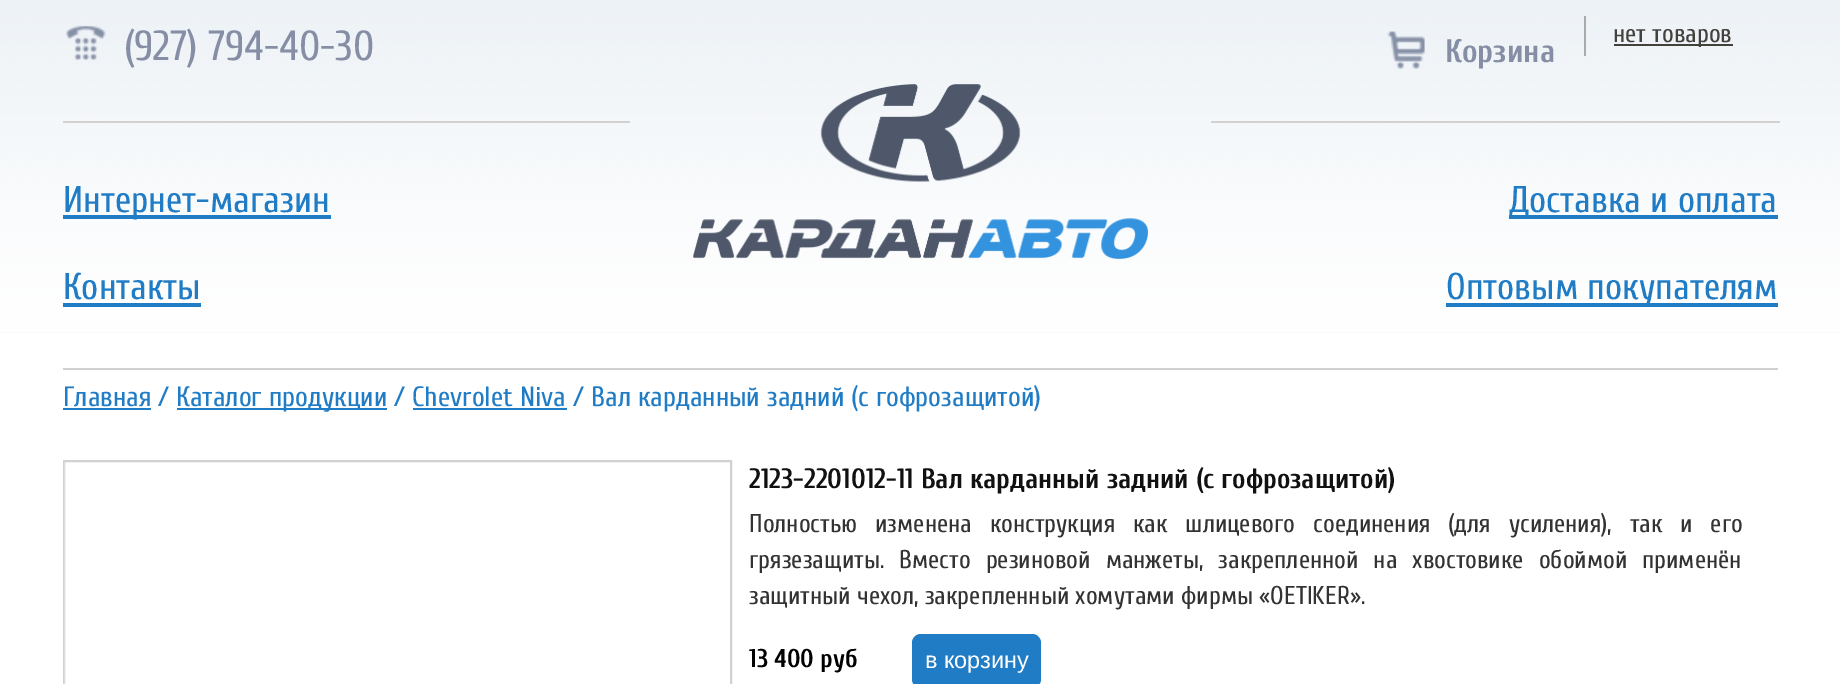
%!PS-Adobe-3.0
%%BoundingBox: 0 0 1840 684
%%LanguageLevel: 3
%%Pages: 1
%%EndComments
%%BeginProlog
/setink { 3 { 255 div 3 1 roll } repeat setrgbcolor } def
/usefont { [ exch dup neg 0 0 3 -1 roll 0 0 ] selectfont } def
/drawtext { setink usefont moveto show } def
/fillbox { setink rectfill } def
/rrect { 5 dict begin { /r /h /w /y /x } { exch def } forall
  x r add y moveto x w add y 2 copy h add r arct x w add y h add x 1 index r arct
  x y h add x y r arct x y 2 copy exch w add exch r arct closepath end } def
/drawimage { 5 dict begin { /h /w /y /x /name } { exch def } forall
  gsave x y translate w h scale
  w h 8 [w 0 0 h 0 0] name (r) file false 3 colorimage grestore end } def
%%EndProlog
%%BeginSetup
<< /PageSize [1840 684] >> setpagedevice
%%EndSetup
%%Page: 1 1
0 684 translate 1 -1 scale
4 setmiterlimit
0 0 1840 684 255 255 255 fillbox
(assets/img1.rgb) 0 0 1840 333 drawimage
(assets/img2.rgb) 66 25 40 35 drawimage
(\(927\) 794-40-30) 124 60 /Cuprum-Regular 42 134 142 165 drawtext
(assets/img3.rgb) 1387 31 38 38 drawimage
(Корзина) 1445 62 /Cuprum-Bold 32.5 134 142 165 drawtext
1584 16 2 40 170 170 170 fillbox
1614 44 119 2 66 65 60 fillbox
(нет товаров) 1613 42 /Cuprum-Regular 25.65 66 65 60 drawtext
63 121 567 2 209 209 209 fillbox
63 215 268 4 32 124 197 fillbox
(Интернет-магазин) 63 212 /Cuprum-Regular 37.25 32 124 197 drawtext
(Контакты) 63 299 /Cuprum-Regular 37.25 32 124 197 drawtext
63 303 138 4 32 124 197 fillbox
(assets/img4.rgb) 693 84 455 175 drawimage
1211 121 569 2 209 209 209 fillbox
1509 215 269 4 32 124 197 fillbox
(Доставка и оплата) 1509 212 /Cuprum-Regular 37.25 32 124 197 drawtext
1446 303 332 4 32 124 197 fillbox
(Оптовым покупателям) 1446 299 /Cuprum-Regular 37.25 32 124 197 drawtext
63 368 1715 2 208 208 208 fillbox
(Главная /) 63 406 /Cuprum-Regular 28 32 124 197 drawtext
63 408 88 2 32 124 197 fillbox
177 408 210 2 32 124 197 fillbox
(Каталог продукции / Chevrolet Niva / Вал карданный задний \(с гофрозащитой\)) 176 406 /Cuprum-Regular 28 32 124 197 drawtext
413 408 154 2 32 124 197 fillbox
209 209 209 setink
2 setlinewidth
64 461 667 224 rectstroke
64 462 1 222 221 221 221 fillbox
(2123-2201012-11 Вал карданный задний \(с гофрозащитой\)) 749 488 /Cuprum-Bold 28 17 17 17 drawtext
/Cuprum-Regular 25.65 usefont
51 51 51 setink
749 532 moveto 11.5 0 32 (Полностью изменена конструкция как шлицевого соединения \(для усиления\), так и его) widthshow
749 568 moveto 8.75 0 32 (грязезащиты. Вместо резиновой манжеты, закрепленной на хвостовике обоймой применён) widthshow
(защитный чехол, закрепленный хомутами фирмы «OETIKER».) 749 604 /Cuprum-Regular 25.65 51 51 51 drawtext
(13 400 руб) 749 667 /Cuprum-Bold 25.65 0 0 0 drawtext
32 124 197 setink
912 634 129 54 9 rrect fill
(в корзину) 925 668 /LiberationSans-Regular 23.5 255 255 255 drawtext
showpage
%%EOF
